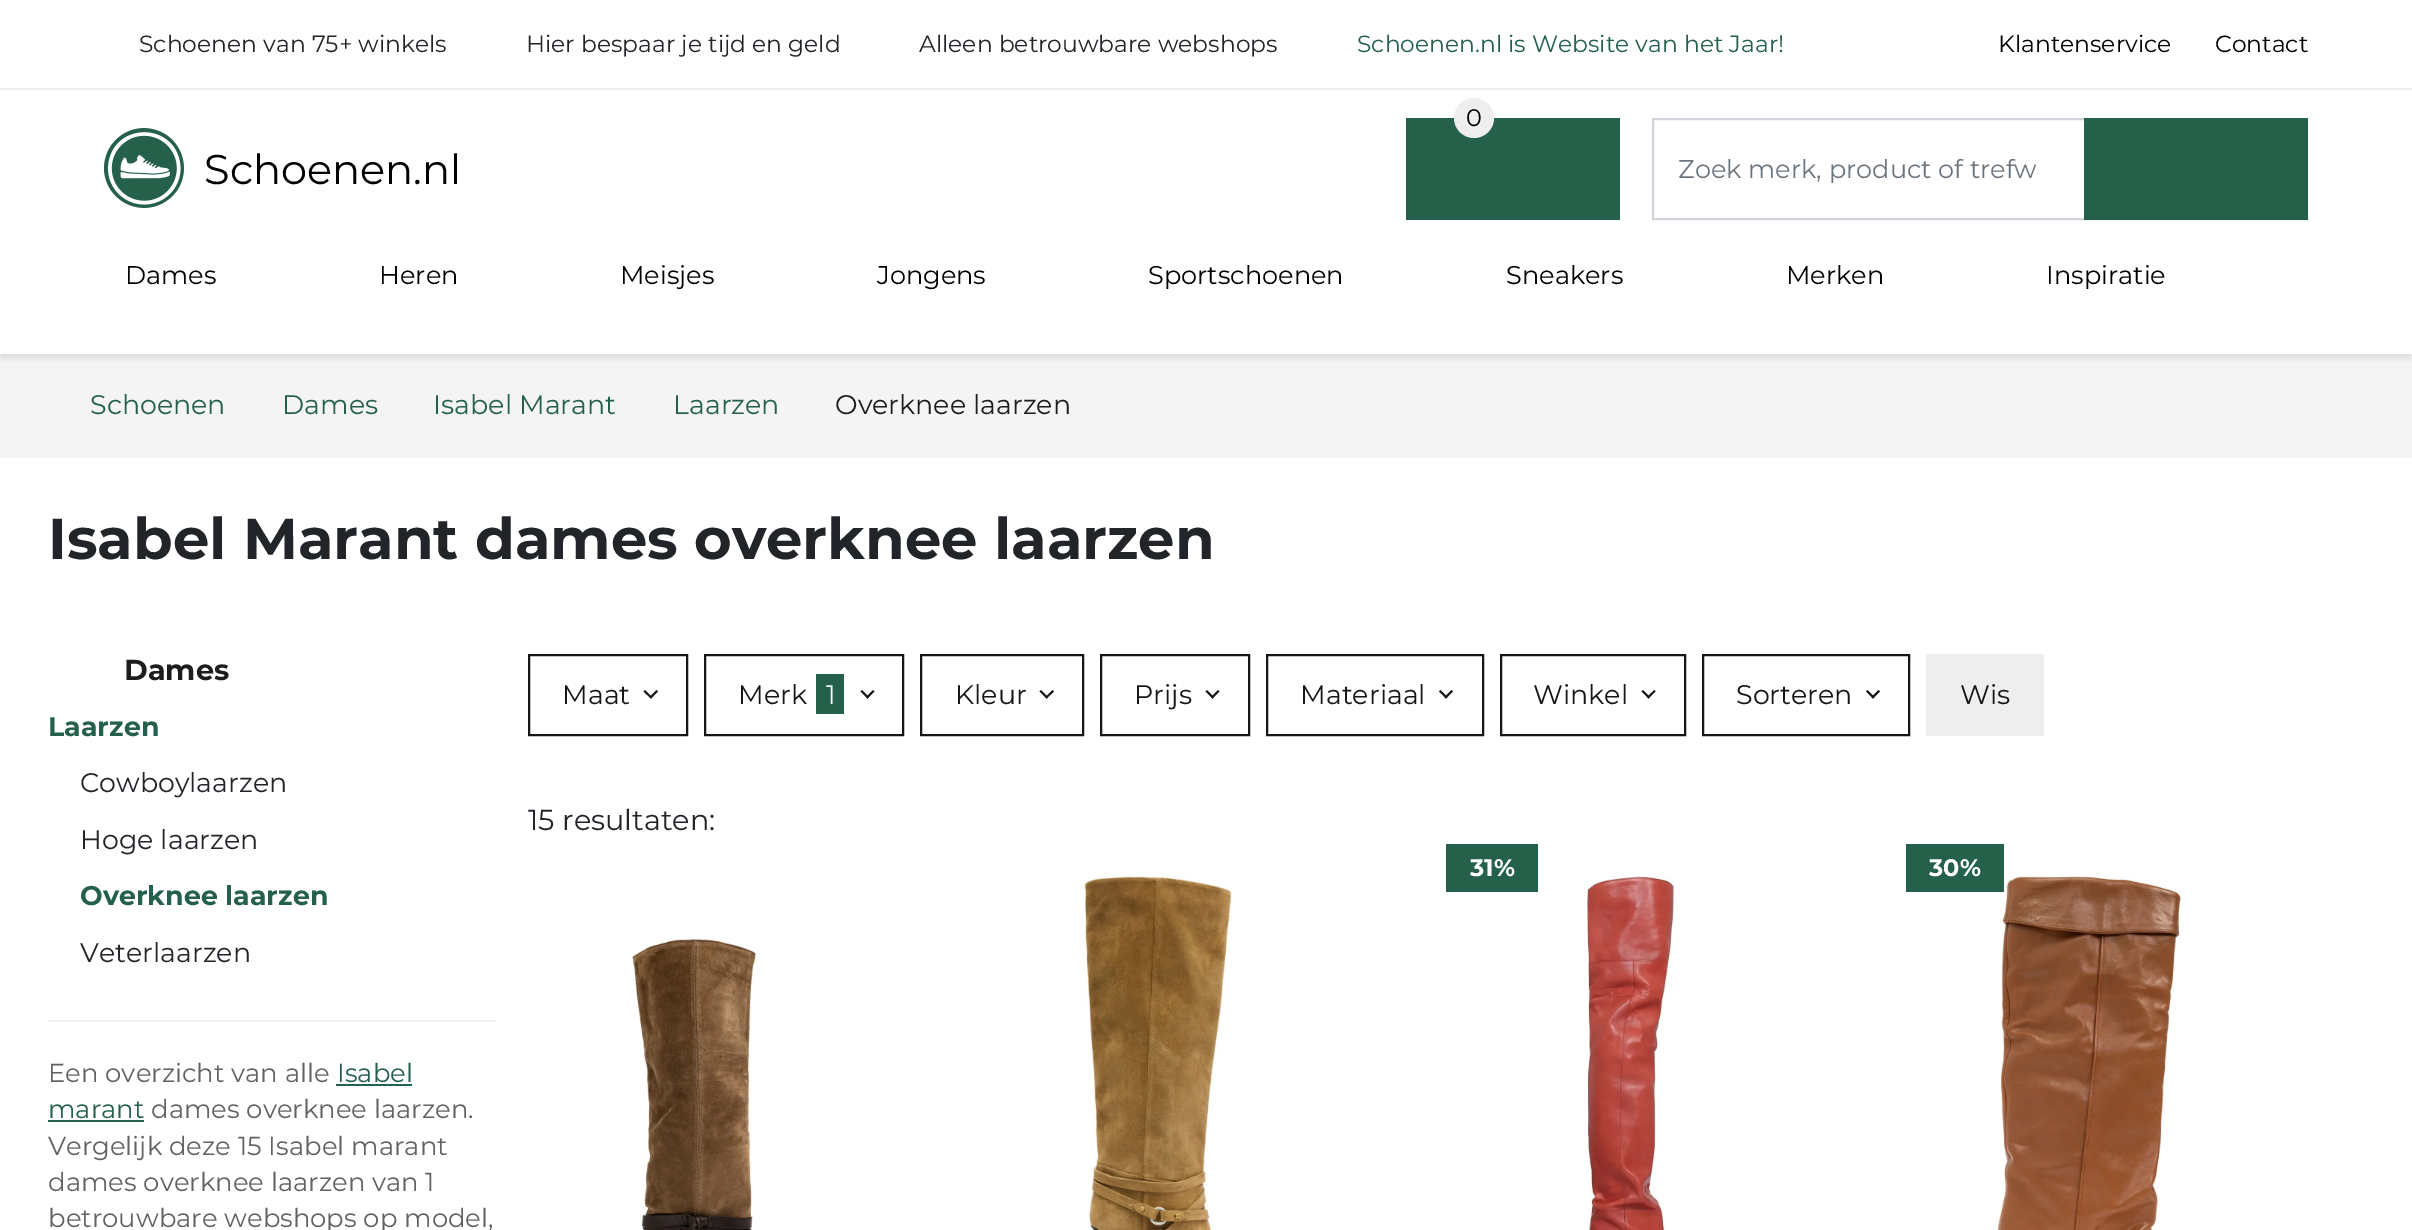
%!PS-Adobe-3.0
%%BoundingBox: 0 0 2412 1230
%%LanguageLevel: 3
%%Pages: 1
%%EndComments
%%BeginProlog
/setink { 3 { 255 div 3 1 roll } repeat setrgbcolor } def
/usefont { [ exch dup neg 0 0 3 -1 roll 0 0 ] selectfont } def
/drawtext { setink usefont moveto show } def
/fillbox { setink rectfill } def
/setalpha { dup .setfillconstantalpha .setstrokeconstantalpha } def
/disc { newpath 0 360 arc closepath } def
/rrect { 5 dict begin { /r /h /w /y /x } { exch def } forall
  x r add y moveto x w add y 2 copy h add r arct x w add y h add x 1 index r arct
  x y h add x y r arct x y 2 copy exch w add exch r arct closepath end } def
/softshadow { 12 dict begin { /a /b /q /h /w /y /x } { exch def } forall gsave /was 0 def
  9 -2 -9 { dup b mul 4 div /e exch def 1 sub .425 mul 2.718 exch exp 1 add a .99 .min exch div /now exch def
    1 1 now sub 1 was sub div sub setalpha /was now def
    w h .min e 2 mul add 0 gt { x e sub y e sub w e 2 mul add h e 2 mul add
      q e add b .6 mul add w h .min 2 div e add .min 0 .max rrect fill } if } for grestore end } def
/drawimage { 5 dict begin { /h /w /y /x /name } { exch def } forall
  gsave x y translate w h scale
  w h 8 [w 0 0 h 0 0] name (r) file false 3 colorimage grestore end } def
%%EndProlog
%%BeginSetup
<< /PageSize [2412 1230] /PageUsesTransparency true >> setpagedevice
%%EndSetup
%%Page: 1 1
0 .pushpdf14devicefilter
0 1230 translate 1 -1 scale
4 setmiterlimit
0 0 2412 1230 255 255 255 fillbox
(Schoenen van 75+ winkels) 139 52 /Montserrat-Regular 23.4 33 37 41 drawtext
(Hier bespaar je tijd en geld) 526 52 /Montserrat-Regular 23.4 33 37 41 drawtext
(Alleen betrouwbare webshops) 919 52 /Montserrat-Regular 23.4 33 37 41 drawtext
(Schoenen.nl is Website van het Jaar!) 1357 52 /Montserrat-Regular 23.4 36 96 74 drawtext
(Klantenservice) 1998 52 /Montserrat-Regular 23.4 0 0 0 drawtext
(Contact) 2215 52 /Montserrat-Regular 23.4 0 0 0 drawtext
0 354 2412 104 244 244 244 fillbox
gsave
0 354 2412 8 rectclip
0 0 0 setink
2 94 2408 262 0 5 0.15 softshadow
grestore
0 88 2412 2 238 238 238 fillbox
(assets/img1.rgb) 104 128 80 80 drawimage
(Schoenen.nl) 204 184 /Montserrat-Regular 41.5 0 0 0 drawtext
1406 118 214 102 36 96 74 fillbox
238 238 238 setink
1474 118 20 disc fill
(0) 1466 126 /Montserrat-Regular 24 0 0 0 drawtext
206 212 218 setink
2 setlinewidth
1653 119 654 100 rectstroke
(Zoek merk, product of trefw) 1678 178 /Montserrat-Regular 25.6 108 117 125 drawtext
2084 118 224 102 36 96 74 fillbox
(Dames) 125 284 /Montserrat-Regular 25.6 0 0 0 drawtext
(Heren) 379 284 /Montserrat-Regular 25.6 0 0 0 drawtext
(Meisjes) 620 284 /Montserrat-Regular 25.6 0 0 0 drawtext
(Jongens) 877 284 /Montserrat-Regular 25.6 0 0 0 drawtext
(Sportschoenen) 1148 284 /Montserrat-Regular 25.6 0 0 0 drawtext
(Sneakers) 1506 284 /Montserrat-Regular 25.6 0 0 0 drawtext
(Merken) 1786 284 /Montserrat-Regular 25.6 0 0 0 drawtext
(Inspiratie) 2046 284 /Montserrat-Regular 25.6 0 0 0 drawtext
(Schoenen) 90 414 /Montserrat-Regular 26.9 36 96 74 drawtext
(Dames) 282 414 /Montserrat-Regular 26.9 36 96 74 drawtext
(Isabel Marant) 433 414 /Montserrat-Regular 26.9 36 96 74 drawtext
(Laarzen) 673 414 /Montserrat-Regular 26.9 36 96 74 drawtext
(Overknee laarzen) 835 414 /Montserrat-Regular 26.9 29 29 29 drawtext
(Isabel Marant dames overknee laarzen) 48 559 /Montserrat-Bold 57.6 33 37 41 drawtext
(Dames) 124 680 /Montserrat-Bold 28.75 29 29 29 drawtext
(Laarzen) 48 736 /Montserrat-Bold 26.9 36 96 74 drawtext
(Cowboylaarzen) 80 792 /Montserrat-Regular 26.9 33 37 41 drawtext
(Hoge laarzen) 80 849 /Montserrat-Regular 26.9 33 37 41 drawtext
(Overknee laarzen) 80 905 /Montserrat-Bold 26.9 36 96 74 drawtext
(Veterlaarzen) 80 962 /Montserrat-Regular 26.9 33 37 41 drawtext
48 1020 448 2 242 242 242 fillbox
(Een overzicht van alle) 48 1082 /Montserrat-Regular 25.9 98 98 98 drawtext
(Isabel) 337 1082 /Montserrat-Regular 25.9 36 96 74 drawtext
336 1084 76 2 36 96 74 fillbox
(marant) 48 1118 /Montserrat-Regular 25.9 36 96 74 drawtext
48 1120 96 2 36 96 74 fillbox
(dames overknee laarzen.) 151 1118 /Montserrat-Regular 25.9 98 98 98 drawtext
(Vergelijk deze 15 Isabel marant) 48 1155 /Montserrat-Regular 25.9 98 98 98 drawtext
(dames overknee laarzen van 1) 48 1191 /Montserrat-Regular 25.9 98 98 98 drawtext
(betrouwbare webshops op model,) 48 1227 /Montserrat-Regular 25.9 98 98 98 drawtext
22 22 22 setink
529 655 158 80 rectstroke
(Maat) 562 704 /Montserrat-Regular 26.9 22 22 22 drawtext
656.5 690 moveto 658 691.5 lineto 651 698.5 lineto 649.5 697 lineto closepath fill
645 690 moveto 652 697 lineto 651 698.5 lineto 643.5 691.5 lineto closepath fill
705 655 198 80 rectstroke
(Merk) 738 704 /Montserrat-Regular 26.9 22 22 22 drawtext
816 674 28 40 36 96 74 fillbox
(1) 826 704 /Montserrat-Regular 26.9 255 255 255 drawtext
22 22 22 setink
873 690 moveto 874.5 691.5 lineto 867.5 698.5 lineto 866 697 lineto closepath fill
862 690 moveto 869 697 lineto 867.5 698.5 lineto 860.5 691.5 lineto closepath fill
921 655 162 80 rectstroke
(Kleur) 955 704 /Montserrat-Regular 26.9 22 22 22 drawtext
1052.5 690 moveto 1054 691.5 lineto 1046.5 698.5 lineto 1045.5 697 lineto closepath fill
1041 690 moveto 1048 697 lineto 1046.5 698.5 lineto 1039.5 691.5 lineto closepath fill
1101 655 148 80 rectstroke
(Prijs) 1134 704 /Montserrat-Regular 26.9 22 22 22 drawtext
1218 690 moveto 1219.5 691.5 lineto 1212.5 698.5 lineto 1211 697 lineto closepath fill
1207 690 moveto 1214 697 lineto 1212.5 698.5 lineto 1205.5 691.5 lineto closepath fill
1267 655 216 80 rectstroke
(Materiaal) 1300 704 /Montserrat-Regular 26.9 22 22 22 drawtext
1451.5 690 moveto 1453 691.5 lineto 1446 698.5 lineto 1444.5 697 lineto closepath fill
1440.5 690 moveto 1447.5 697 lineto 1446 698.5 lineto 1439 691.5 lineto closepath fill
1501 655 184 80 rectstroke
(Winkel) 1533 704 /Montserrat-Regular 26.9 22 22 22 drawtext
1654.5 690 moveto 1655.5 691.5 lineto 1648.5 698.5 lineto 1647 697 lineto closepath fill
1643 690 moveto 1650 697 lineto 1648.5 698.5 lineto 1641.5 691.5 lineto closepath fill
1703 655 206 80 rectstroke
(Sorteren) 1736 704 /Montserrat-Regular 26.9 22 22 22 drawtext
1878.5 690 moveto 1880 691.5 lineto 1873 698.5 lineto 1871.5 697 lineto closepath fill
1867.5 690 moveto 1874.5 697 lineto 1873 698.5 lineto 1866 691.5 lineto closepath fill
1926 654 118 82 238 238 238 fillbox
(Wis) 1960 704 /Montserrat-Regular 26.9 22 22 22 drawtext
(15 resultaten:) 528 830 /Montserrat-Regular 28.75 33 37 41 drawtext
1446 844 92 48 36 96 74 fillbox
(31%) 1470 876 /Montserrat-Bold 24 255 255 255 drawtext
(assets/img2.rgb) 1587 876 88 354 drawimage
(assets/img3.rgb) 1997 876 184 354 drawimage
1906 844 98 48 36 96 74 fillbox
(30%) 1929 876 /Montserrat-Bold 24 255 255 255 drawtext
(assets/img4.rgb) 632 939 124 291 drawimage
(assets/img5.rgb) 1084 876 148 354 drawimage
.poppdf14devicefilter showpage
%%EOF
